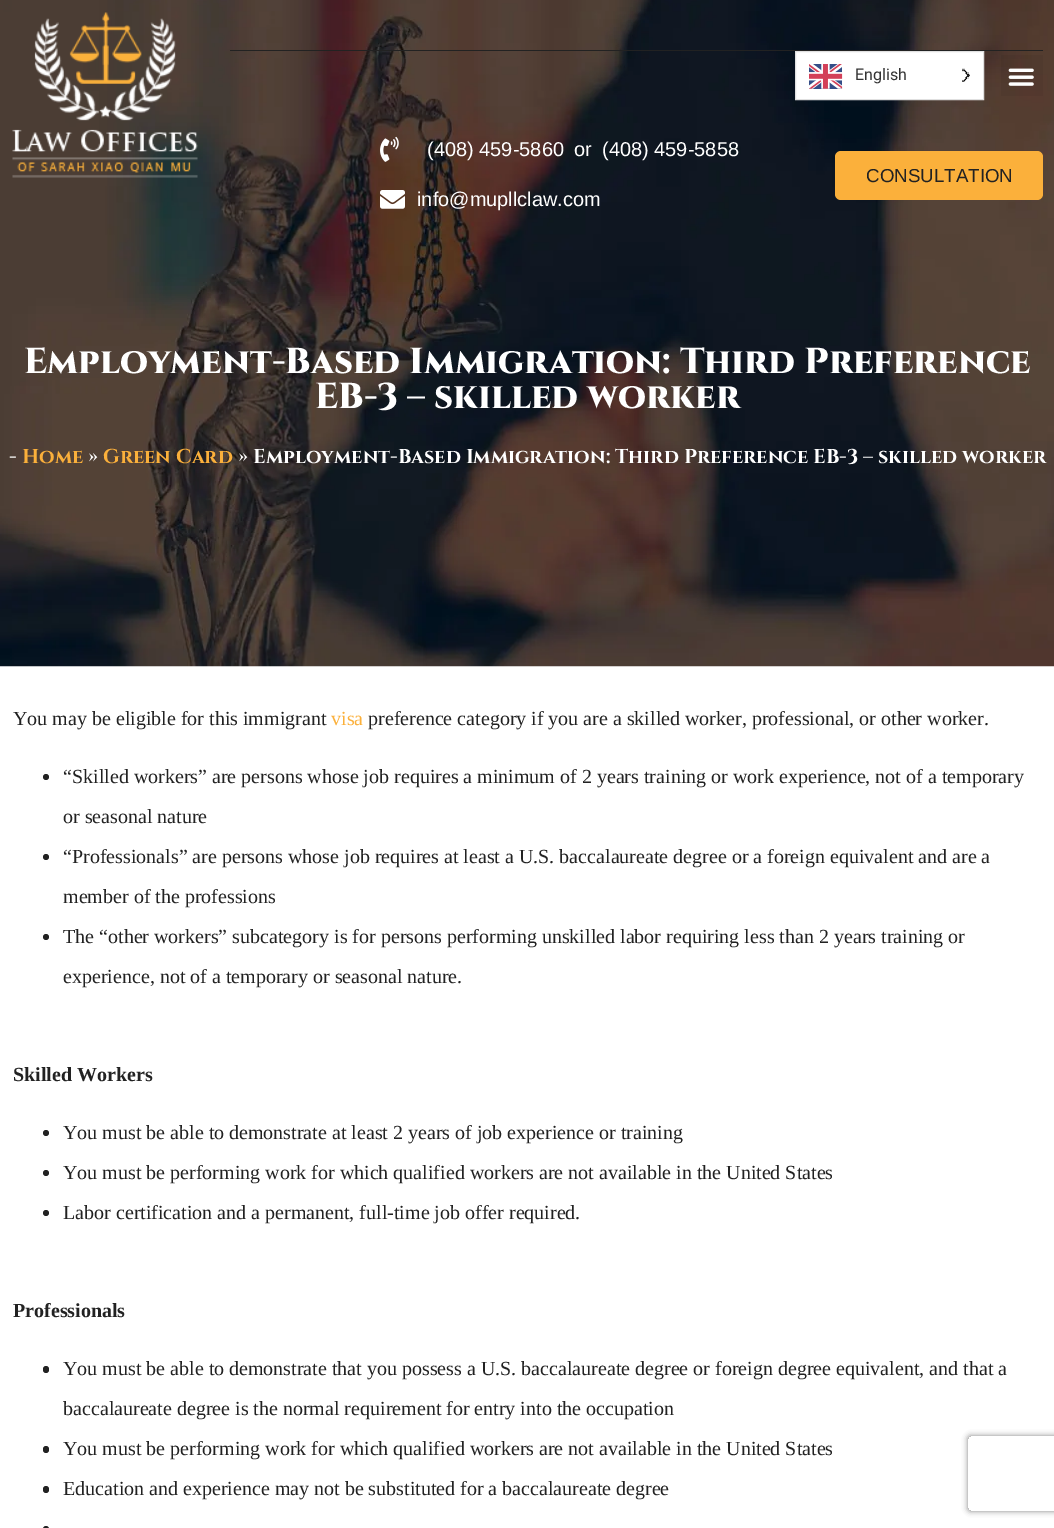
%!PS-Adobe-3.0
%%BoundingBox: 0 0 1054 1528
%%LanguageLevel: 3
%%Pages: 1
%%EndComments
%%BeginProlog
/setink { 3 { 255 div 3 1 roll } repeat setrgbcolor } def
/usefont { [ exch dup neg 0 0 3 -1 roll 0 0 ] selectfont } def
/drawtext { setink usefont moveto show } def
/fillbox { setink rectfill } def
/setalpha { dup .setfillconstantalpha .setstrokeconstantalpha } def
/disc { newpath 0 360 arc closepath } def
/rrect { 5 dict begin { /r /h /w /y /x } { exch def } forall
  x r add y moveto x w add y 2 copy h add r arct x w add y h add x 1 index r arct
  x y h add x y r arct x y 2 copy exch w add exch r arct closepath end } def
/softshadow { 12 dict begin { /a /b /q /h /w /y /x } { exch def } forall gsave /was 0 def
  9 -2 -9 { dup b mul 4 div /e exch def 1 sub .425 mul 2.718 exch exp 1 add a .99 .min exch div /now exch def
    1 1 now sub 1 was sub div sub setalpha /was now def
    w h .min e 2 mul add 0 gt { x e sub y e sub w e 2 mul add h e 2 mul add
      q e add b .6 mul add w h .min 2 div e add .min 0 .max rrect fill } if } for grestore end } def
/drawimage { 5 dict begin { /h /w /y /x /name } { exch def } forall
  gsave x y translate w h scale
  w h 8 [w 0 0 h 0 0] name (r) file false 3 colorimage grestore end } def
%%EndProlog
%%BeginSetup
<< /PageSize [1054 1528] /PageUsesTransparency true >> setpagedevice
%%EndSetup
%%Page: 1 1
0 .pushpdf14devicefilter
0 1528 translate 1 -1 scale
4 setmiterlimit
0 0 1054 1528 255 255 255 fillbox
(assets/img7.rgb) 0 0 1054 667 drawimage
(assets/img1.rgb) 12 12 186 166 drawimage
230 50 813 1 34 34 34 fillbox
255 255 255 setink
795.5 51.5 moveto 983.5 51.5 lineto 983.5 99.5 lineto 795.5 99.5 lineto closepath gsave fill grestore
224 224 224 setink
stroke
(assets/img2.rgb) 809 64 34 25 drawimage
(English) 855 80 /Roboto-Regular 16 51 51 51 drawtext
(assets/img3.rgb) 962 68 8 14 drawimage
0.05 setalpha
1001 55 42 41 0 0 0 fillbox
1 setalpha
(assets/img4.rgb) 1008 68 26 18 drawimage
(assets/img5.rgb) 380 136 19 26 drawimage
(\(408\) 459-5860) 427 156 /LiberationSans-Regular 20 255 255 255 drawtext
(or) 574 156 /LiberationSans-Regular 20 255 255 255 drawtext
(\(408\) 459-5858) 602 156 /LiberationSans-Regular 20 255 255 255 drawtext
(assets/img6.rgb) 380 190 25 19 drawimage
(info@mupllclaw.com) 417 206 /LiberationSans-Regular 20 255 255 255 drawtext
251 176 59 setink
835 151 208 49 6 rrect fill
(CONSULTATION) 866 182 /LiberationSans-Regular 18.75 34 34 34 drawtext
(Employment-Based Immigration: Third Preference) 24 373 /Cinzel-ExtraBold 36 255 255 255 drawtext
(EB-3 – skilled worker) 315 408 /Cinzel-ExtraBold 36 255 255 255 drawtext
(-) 9 463 /Cinzel-Bold 20 255 255 255 drawtext
(Home) 22 463 /Cinzel-Bold 20 251 176 59 drawtext
(») 88 463 /Cinzel-Bold 20 255 255 255 drawtext
(Green Card) 103 463 /Cinzel-Bold 20 251 176 59 drawtext
(» Employment-Based Immigration: Third Preference EB-3 – skilled worker) 238 463 /Cinzel-Bold 20 255 255 255 drawtext
(You may be eligible for this immigrant) 13 725 /LiberationSerif-Regular 20 34 34 34 drawtext
(visa) 331 725 /LiberationSerif-Regular 20 251 176 59 drawtext
(preference category if you are a skilled worker, professional, or other worker.) 368 725 /LiberationSerif-Regular 20 34 34 34 drawtext
46 777 3 disc fill
(“Skilled workers” are persons whose job requires a minimum of 2 years training or work experience, not of a temporary) 63 783 /LiberationSerif-Regular 20 34 34 34 drawtext
(or seasonal nature) 63 823 /LiberationSerif-Regular 20 34 34 34 drawtext
46 857 3 disc fill
(“Professionals” are persons whose job requires at least a U.S. baccalaureate degree or a foreign equivalent and are a) 63 863 /LiberationSerif-Regular 20 34 34 34 drawtext
(member of the professions) 63 903 /LiberationSerif-Regular 20 34 34 34 drawtext
46 937 3 disc fill
(The “other workers” subcategory is for persons performing unskilled labor requiring less than 2 years training or) 63 943 /LiberationSerif-Regular 20 34 34 34 drawtext
(experience, not of a temporary or seasonal nature.) 63 983 /LiberationSerif-Regular 20 34 34 34 drawtext
(Skilled Workers) 13 1081 /LiberationSerif-Bold 20 34 34 34 drawtext
46 1133 3 disc fill
(You must be able to demonstrate at least 2 years of job experience or training) 63 1139 /LiberationSerif-Regular 20 34 34 34 drawtext
46 1173 3 disc fill
(You must be performing work for which qualified workers are not available in the United States) 63 1179 /LiberationSerif-Regular 20 34 34 34 drawtext
46 1213 3 disc fill
(Labor certification and a permanent, full-time job offer required.) 63 1219 /LiberationSerif-Regular 20 34 34 34 drawtext
(Professionals) 13 1317 /LiberationSerif-Bold 20 34 34 34 drawtext
43 1366 6 7 3 rrect fill
(You must be able to demonstrate that you possess a U.S. baccalaureate degree or foreign degree equivalent, and that a) 63 1375 /LiberationSerif-Regular 20 34 34 34 drawtext
(baccalaureate degree is the normal requirement for entry into the occupation) 63 1415 /LiberationSerif-Regular 20 34 34 34 drawtext
43 1446 6 7 3 rrect fill
(You must be performing work for which qualified workers are not available in the United States) 63 1455 /LiberationSerif-Regular 20 34 34 34 drawtext
43 1486 6 7 3 rrect fill
(Education and experience may not be substituted for a baccalaureate degree) 63 1495 /LiberationSerif-Regular 20 34 34 34 drawtext
43 1526 6 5 3 rrect fill
gsave
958 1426 moveto 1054 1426 lineto 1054 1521 lineto 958 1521 lineto closepath 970.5 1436 moveto 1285.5 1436 lineto 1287 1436 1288 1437 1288 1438.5 curveto 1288 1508.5 lineto 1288 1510 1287 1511 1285.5 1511 curveto 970.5 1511 lineto 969 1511 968 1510 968 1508.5 curveto 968 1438.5 lineto 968 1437 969 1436 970.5 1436 curveto closepath eoclip newpath
128 128 128 setink
968 1436 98 75 2.5 3 1 softshadow
grestore
.poppdf14devicefilter showpage
%%EOF
